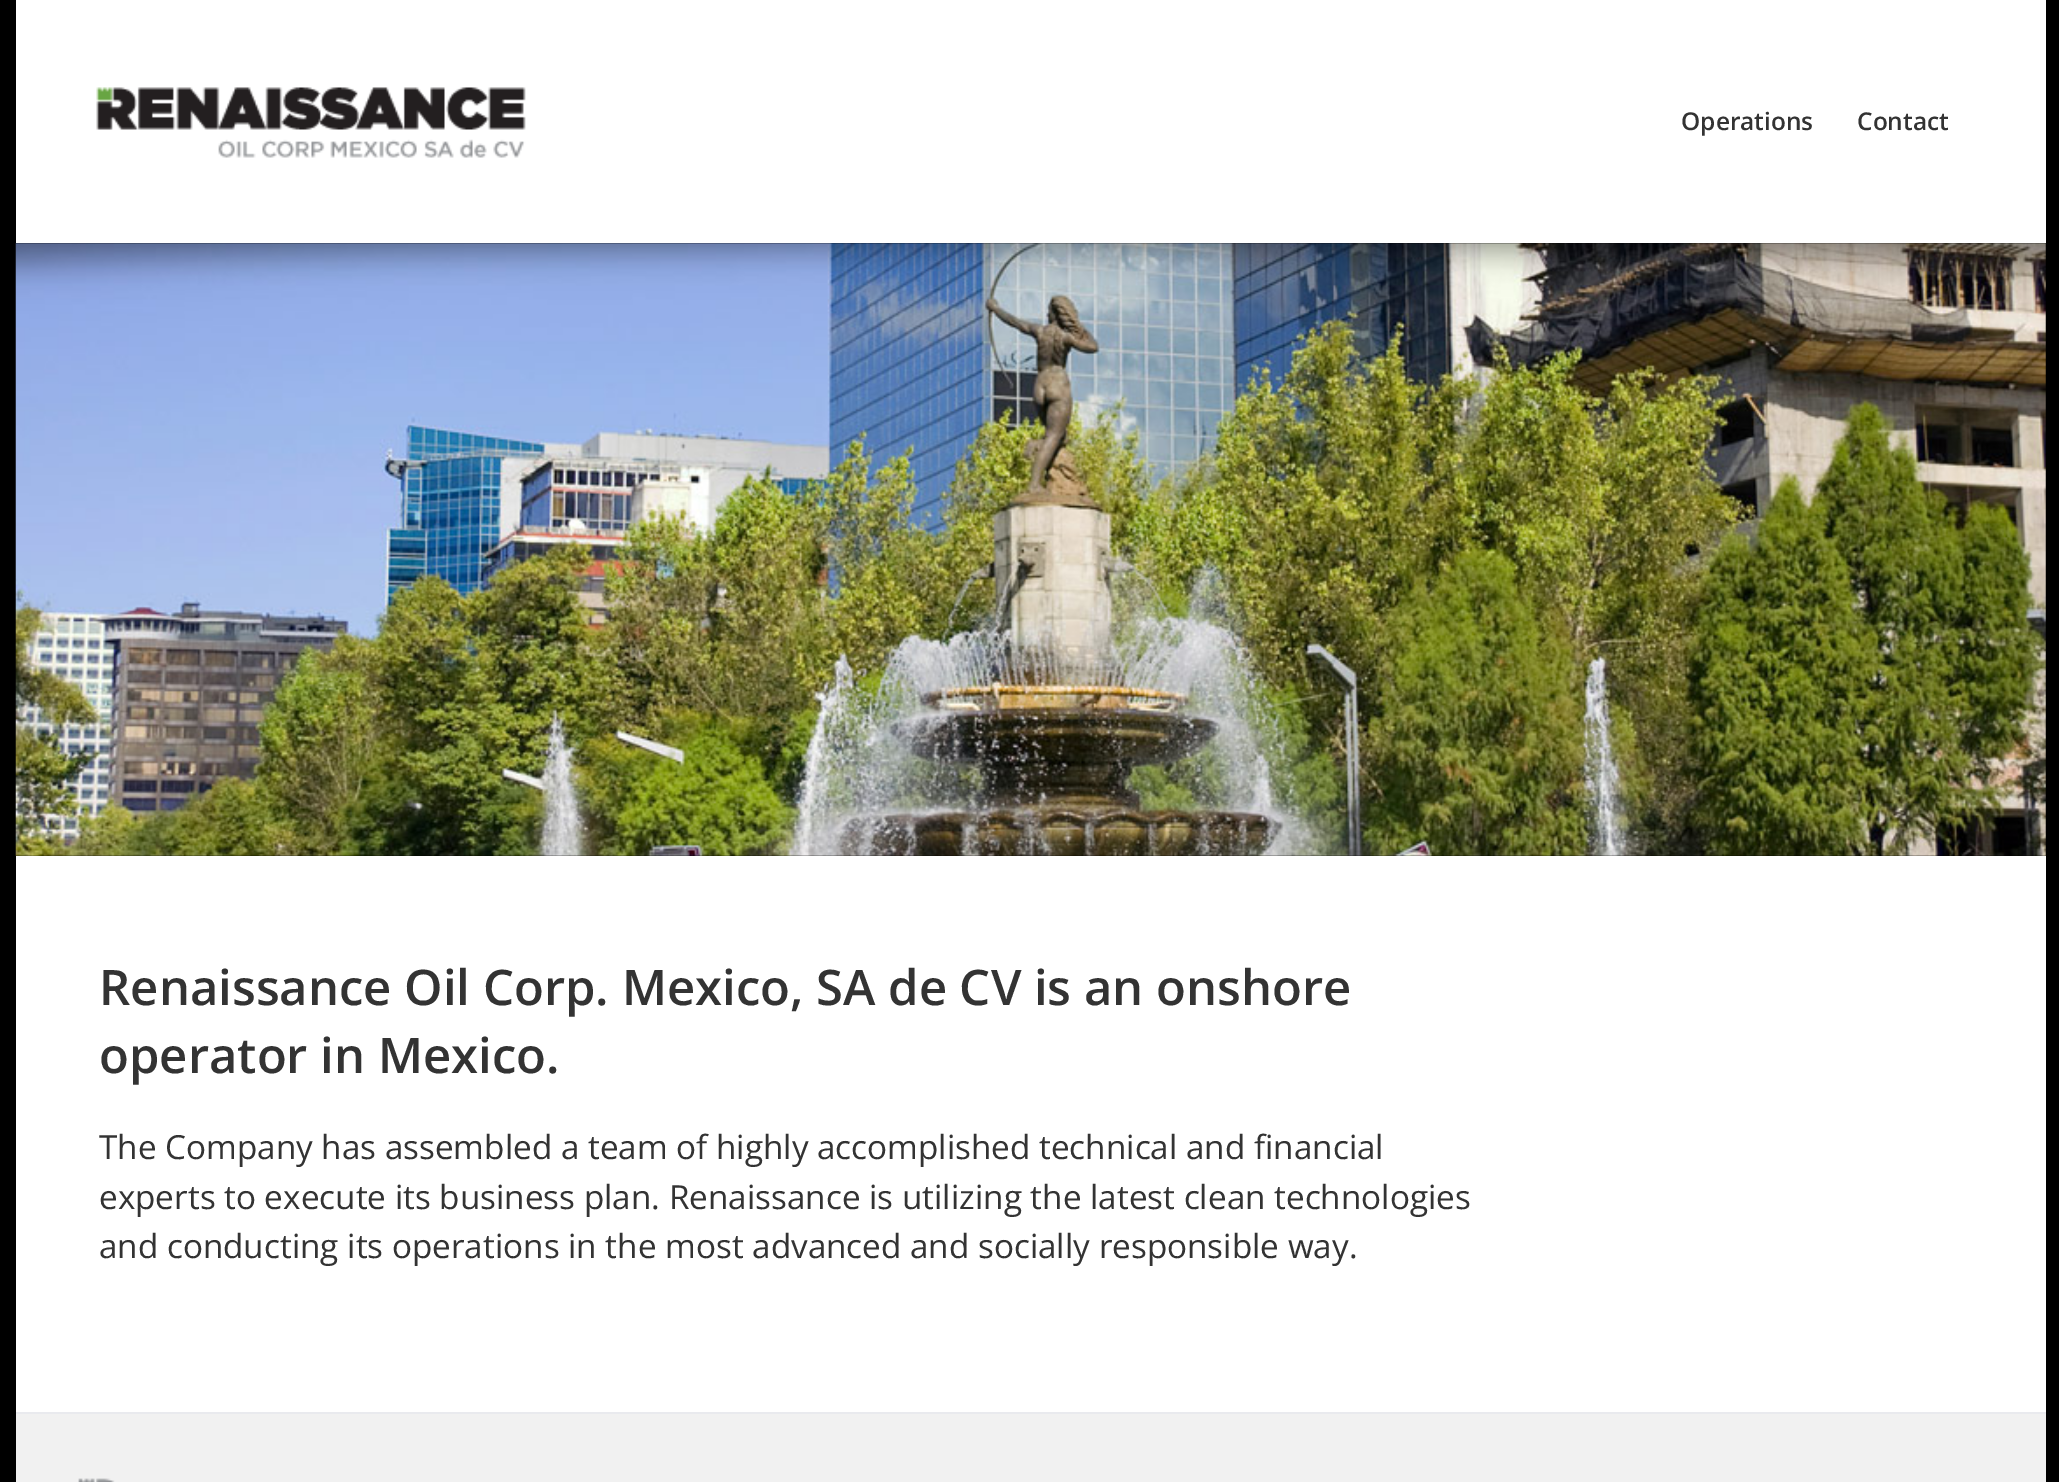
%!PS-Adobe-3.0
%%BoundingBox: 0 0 2059 1482
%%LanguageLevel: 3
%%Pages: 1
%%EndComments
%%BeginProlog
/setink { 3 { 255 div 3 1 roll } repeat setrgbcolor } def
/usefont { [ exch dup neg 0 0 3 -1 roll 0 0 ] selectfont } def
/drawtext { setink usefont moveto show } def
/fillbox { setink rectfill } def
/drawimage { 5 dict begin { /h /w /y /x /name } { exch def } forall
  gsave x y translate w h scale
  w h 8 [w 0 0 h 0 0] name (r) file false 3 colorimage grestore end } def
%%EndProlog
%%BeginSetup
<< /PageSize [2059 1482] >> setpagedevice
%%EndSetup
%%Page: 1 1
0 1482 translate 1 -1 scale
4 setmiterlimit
0 0 2059 1482 0 0 0 fillbox
16 0 2030 243 255 255 255 fillbox
(assets/img1.rgb) 96 87 430 71 drawimage
(Operations) 1681 130 /OpenSans-SemiBold 24.5 51 51 51 drawtext
(Contact) 1857 130 /OpenSans-SemiBold 24.5 51 51 51 drawtext
(assets/img2.rgb) 15 243 2031 613 drawimage
16 856 2030 556 255 255 255 fillbox
(Renaissance Oil Corp. Mexico, SA de CV is an onshore) 99 1005 /OpenSans-SemiBold 49 51 51 51 drawtext
(operator in Mexico.) 99 1073 /OpenSans-SemiBold 49 51 51 51 drawtext
(The Company has assembled a team of highly accomplished technical and financial) 99 1159 /OpenSans-Regular 33.25 51 51 51 drawtext
(experts to execute its business plan. Renaissance is utilizing the latest clean technologies) 99 1209 /OpenSans-Regular 33.25 51 51 51 drawtext
(and conducting its operations in the most advanced and socially responsible way.) 99 1258 /OpenSans-Regular 33.25 51 51 51 drawtext
16 1414 2030 68 241 241 241 fillbox
16 1412 2030 2 233 234 238 fillbox
(assets/img3.rgb) 78 1478 37 4 drawimage
showpage
%%EOF
